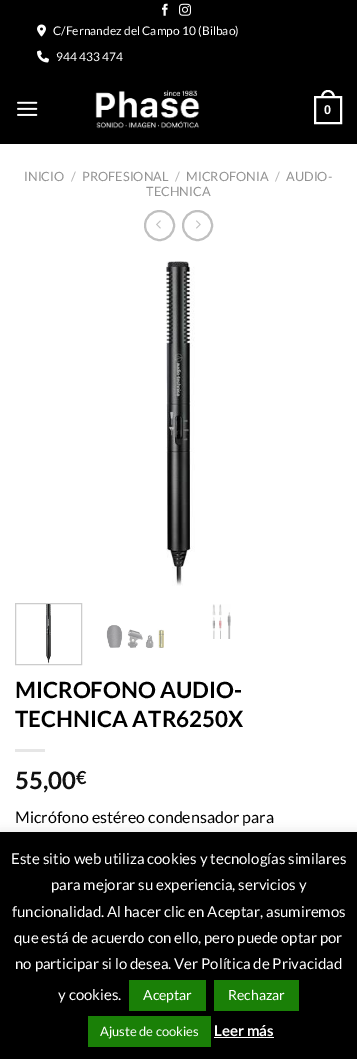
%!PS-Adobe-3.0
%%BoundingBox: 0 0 357 1059
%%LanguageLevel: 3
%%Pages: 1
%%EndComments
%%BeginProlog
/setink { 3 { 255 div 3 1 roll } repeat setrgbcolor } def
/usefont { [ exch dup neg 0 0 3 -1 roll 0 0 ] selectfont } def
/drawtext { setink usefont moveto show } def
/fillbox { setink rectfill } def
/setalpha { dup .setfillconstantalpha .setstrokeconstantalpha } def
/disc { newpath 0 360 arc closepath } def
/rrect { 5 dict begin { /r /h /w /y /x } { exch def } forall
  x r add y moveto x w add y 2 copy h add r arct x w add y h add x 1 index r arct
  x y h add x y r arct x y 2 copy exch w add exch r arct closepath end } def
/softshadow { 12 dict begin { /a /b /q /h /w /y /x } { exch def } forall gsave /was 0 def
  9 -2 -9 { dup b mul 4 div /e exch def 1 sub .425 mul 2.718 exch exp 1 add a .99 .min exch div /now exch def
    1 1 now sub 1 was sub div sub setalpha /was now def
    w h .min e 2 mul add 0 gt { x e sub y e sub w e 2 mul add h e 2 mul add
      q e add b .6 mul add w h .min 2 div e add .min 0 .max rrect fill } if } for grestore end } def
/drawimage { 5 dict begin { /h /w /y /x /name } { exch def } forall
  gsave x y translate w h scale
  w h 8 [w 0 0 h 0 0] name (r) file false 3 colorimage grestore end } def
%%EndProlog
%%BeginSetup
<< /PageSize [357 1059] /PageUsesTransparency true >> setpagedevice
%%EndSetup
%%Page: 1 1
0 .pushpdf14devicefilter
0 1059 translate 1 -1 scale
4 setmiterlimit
0 0 357 1059 255 255 255 fillbox
0 0 357 144 0 0 0 fillbox
(assets/img1.rgb) 162 3 6 13 drawimage
(assets/img2.rgb) 179 3 12 13 drawimage
(assets/img3.rgb) 37 24 9 13 drawimage
(C/Fernandez del Campo 10 \(Bilbao\)) 53 35 /Lato-Regular 12 255 255 255 drawtext
(assets/img4.rgb) 37 50 12 13 drawimage
(944 433 474) 56 61 /Lato-Regular 12 255 255 255 drawtext
(assets/img5.rgb) 17 101 21 15 drawimage
(assets/img6.rgb) 95 90 105 39 drawimage
2 setlinewidth
315 97 26 26 rectstroke
328 90 moveto 332.5 90 335 94 335 98 curveto 321 98 lineto 321 94 323.5 90 328 90 curveto closepath 328 92 moveto 331.5 92 333 95 333 98 curveto 323 98 lineto 323 95 324.5 92 328 92 curveto closepath eofill
(0) 324 114 /LiberationSans-Bold 12.75 255 255 255 drawtext
(INICIO) 24 181 /Lato-Regular 12.75 148 148 148 drawtext
(/) 71 181 /Lato-Regular 12.75 178 178 178 drawtext
(PROFESIONAL) 82 181 /Lato-Regular 12.75 148 148 148 drawtext
(/) 175 181 /Lato-Regular 12.75 178 178 178 drawtext
(MICROFONIA) 186 181 /Lato-Regular 12.75 148 148 148 drawtext
(/) 275 181 /Lato-Regular 12.75 178 178 178 drawtext
(AUDIO-) 286 181 /Lato-Regular 12.75 148 148 148 drawtext
(TECHNICA) 146 196 /Lato-Regular 12.75 148 148 148 drawtext
192 192 192 setink
159.5 225.5 14.5 disc stroke
(assets/img7.rgb) 156 220 5 9 drawimage
197.5 225.5 14.5 disc stroke
(assets/img8.rgb) 196 220 5 9 drawimage
(assets/img9.rgb) 166 261 29 325 drawimage
204 204 204 setink
1 setlinewidth
15.5 603.5 66 61 rectstroke
(assets/img10.rgb) 46 604 5 60 drawimage
(assets/img11.rgb) 106 625 58 23 drawimage
(assets/img12.rgb) 212 604 19 35 drawimage
(MICROFONO AUDIO-) 15 698 /Lato-Bold 22.4 0 0 0 drawtext
(TECHNICA ATR6250X) 15 727 /Lato-Bold 22.4 0 0 0 drawtext
15 749 30 3 230 230 230 fillbox
(55,00) 15 789 /Lato-Bold 24 17 17 17 drawtext
(€) 76 784 /Lato-Bold 18 17 17 17 drawtext
(Micrófono estéreo condensador para) 15 823 /Lato-Regular 16 0 0 0 drawtext
172 171 171 setink
0 831 357 227 0 5 0.3 softshadow
0 832 357 227 0 0 0 fillbox
(Este sitio web utiliza cookies y tecnologías similares) 11 864 /Lato-Regular 15 255 255 255 drawtext
(para mejorar su experiencia, servicios y) 51 890 /Lato-Regular 15 255 255 255 drawtext
(funcionalidad. Al hacer clic en Aceptar, asumiremos) 12 917 /Lato-Regular 15 255 255 255 drawtext
(que está de acuerdo con ello, pero puede optar por) 14 943 /Lato-Regular 15 255 255 255 drawtext
(no participar si lo desea. Ver Política de Privacidad) 15 969 /Lato-Regular 15 255 255 255 drawtext
(y cookies.) 58 1000 /Lato-Regular 15 255 255 255 drawtext
129 980 77 31 26 128 7 fillbox
(Aceptar) 143 1000 /Lato-Regular 14 255 255 255 drawtext
214 980 85 31 26 128 7 fillbox
(Rechazar) 228 1000 /Lato-Regular 14 255 255 255 drawtext
88 1016 123 31 26 128 7 fillbox
(Ajuste de cookies) 100 1036 /Lato-Regular 13 255 255 255 drawtext
(Leer más) 214 1036 /Lato-Bold 15 255 255 255 drawtext
214 1037 60 1 255 255 255 fillbox
.poppdf14devicefilter showpage
%%EOF
